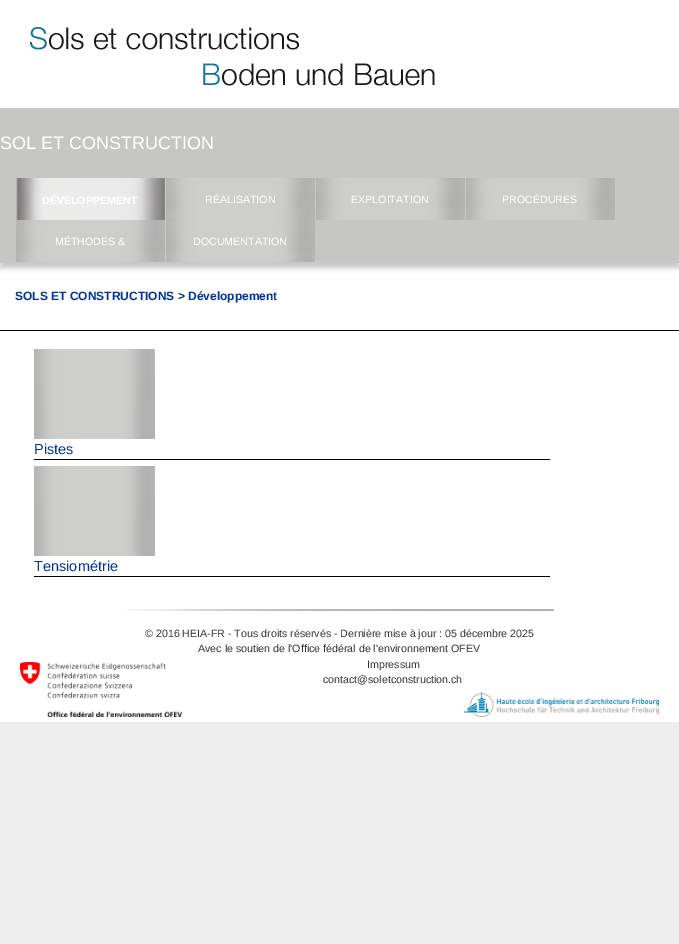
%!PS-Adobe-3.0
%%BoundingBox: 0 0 679 944
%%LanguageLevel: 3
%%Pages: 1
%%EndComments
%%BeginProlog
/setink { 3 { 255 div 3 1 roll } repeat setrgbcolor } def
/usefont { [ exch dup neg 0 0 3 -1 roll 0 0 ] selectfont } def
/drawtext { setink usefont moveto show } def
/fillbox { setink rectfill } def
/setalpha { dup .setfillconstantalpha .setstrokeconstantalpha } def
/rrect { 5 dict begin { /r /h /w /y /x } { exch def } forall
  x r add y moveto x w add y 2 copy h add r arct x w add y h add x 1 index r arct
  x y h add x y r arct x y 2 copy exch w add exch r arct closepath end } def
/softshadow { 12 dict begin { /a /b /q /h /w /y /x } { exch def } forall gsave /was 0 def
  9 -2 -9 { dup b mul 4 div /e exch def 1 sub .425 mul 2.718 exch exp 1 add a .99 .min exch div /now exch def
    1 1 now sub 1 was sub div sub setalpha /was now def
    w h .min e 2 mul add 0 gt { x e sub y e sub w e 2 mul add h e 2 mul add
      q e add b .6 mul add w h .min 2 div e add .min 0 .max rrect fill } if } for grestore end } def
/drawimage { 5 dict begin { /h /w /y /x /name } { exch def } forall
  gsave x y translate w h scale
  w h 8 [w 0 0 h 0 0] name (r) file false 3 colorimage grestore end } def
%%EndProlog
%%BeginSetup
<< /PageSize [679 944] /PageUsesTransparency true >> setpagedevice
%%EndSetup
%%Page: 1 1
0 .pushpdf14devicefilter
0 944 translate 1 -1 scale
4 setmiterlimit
0 0 679 944 238 238 238 fillbox
0 0 679 108 255 255 255 fillbox
(assets/img1.rgb) 30 27 405 59 drawimage
0 263 679 459 255 255 255 fillbox
198 198 198 setink
0 113 679 155 0 2.5 1 softshadow
0 109 679 154 198 198 197 fillbox
(SOL ET CONSTRUCTION) 0 149 /LiberationSans-Regular 18 255 255 255 drawtext
0 108 679 1 204 204 203 fillbox
(assets/img2.rgb) 16 178 149 42 drawimage
(DÉVELOPPEMENT) 42 204 /LiberationSans-Bold 10.65 255 255 255 drawtext
(assets/img3.rgb) 166 178 149 42 drawimage
(RÉALISATION) 205 203 /LiberationSans-Regular 10.65 255 255 255 drawtext
(assets/img3.rgb) 316 178 149 42 drawimage
(EXPLOITATION) 351 203 /LiberationSans-Regular 10.65 255 255 255 drawtext
(assets/img3.rgb) 466 178 149 42 drawimage
(PROCÉDURES) 502 203 /LiberationSans-Regular 10.65 255 255 255 drawtext
(assets/img3.rgb) 16 220 149 42 drawimage
(MÉTHODES &) 55 245 /LiberationSans-Regular 10.65 255 255 255 drawtext
(assets/img3.rgb) 166 220 149 42 drawimage
(DOCUMENTATION) 193 245 /LiberationSans-Regular 10.65 255 255 255 drawtext
0 330 679 1 0 0 0 fillbox
(SOLS ET CONSTRUCTIONS) 15 300 /LiberationSans-Bold 12 0 51 153 drawtext
(>) 178 300 /LiberationSans-Bold 12 0 55 89 drawtext
(Développement) 188 300 /LiberationSans-Bold 12 0 51 153 drawtext
(assets/img4.rgb) 34 349 121 90 drawimage
34 459 516 1 0 0 0 fillbox
(Pistes) 34 454 /LiberationSans-Regular 14.5 0 51 153 drawtext
(assets/img4.rgb) 34 466 121 90 drawimage
34 576 516 1 0 0 0 fillbox
(Tensiométrie) 34 571 /LiberationSans-Regular 14.5 0 51 153 drawtext
(assets/img5.rgb) 125 609 429 2 drawimage
(© 2016 HEIA-FR - Tous droits réservés - Dernière mise à jour : 05 décembre 2025) 145 637 /LiberationSans-Regular 10.65 51 51 51 drawtext
(Avec le soutien de l'Office fédéral de l'environnement OFEV) 198 652 /LiberationSans-Regular 10.65 51 51 51 drawtext
(assets/img6.rgb) 20 662 162 55 drawimage
(Impressum) 367 668 /LiberationSans-Regular 10.65 51 51 51 drawtext
(contact@soletconstruction.ch) 323 683 /LiberationSans-Regular 10.65 51 51 51 drawtext
(assets/img7.rgb) 464 692 195 25 drawimage
.poppdf14devicefilter showpage
%%EOF
